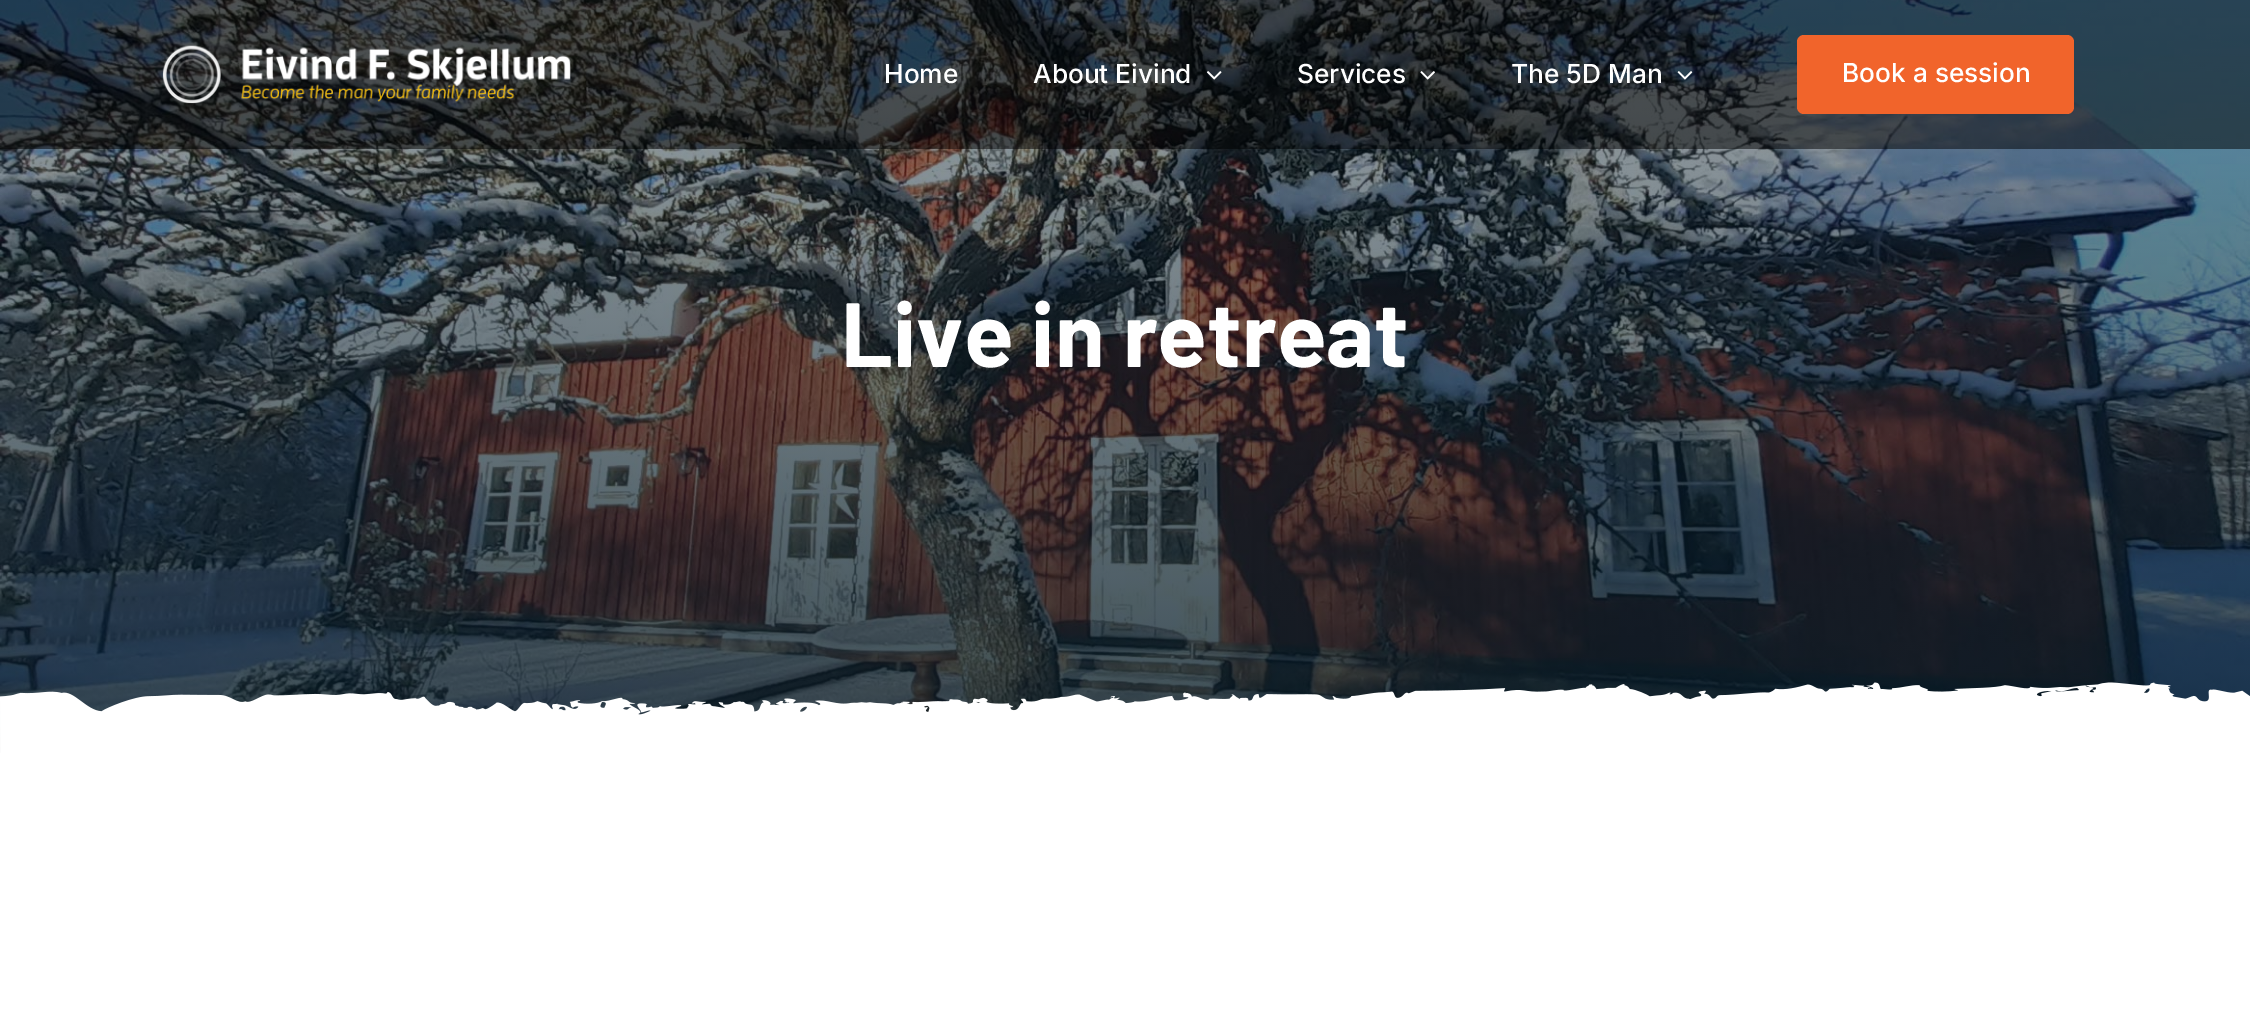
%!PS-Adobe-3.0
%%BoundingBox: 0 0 2250 1035
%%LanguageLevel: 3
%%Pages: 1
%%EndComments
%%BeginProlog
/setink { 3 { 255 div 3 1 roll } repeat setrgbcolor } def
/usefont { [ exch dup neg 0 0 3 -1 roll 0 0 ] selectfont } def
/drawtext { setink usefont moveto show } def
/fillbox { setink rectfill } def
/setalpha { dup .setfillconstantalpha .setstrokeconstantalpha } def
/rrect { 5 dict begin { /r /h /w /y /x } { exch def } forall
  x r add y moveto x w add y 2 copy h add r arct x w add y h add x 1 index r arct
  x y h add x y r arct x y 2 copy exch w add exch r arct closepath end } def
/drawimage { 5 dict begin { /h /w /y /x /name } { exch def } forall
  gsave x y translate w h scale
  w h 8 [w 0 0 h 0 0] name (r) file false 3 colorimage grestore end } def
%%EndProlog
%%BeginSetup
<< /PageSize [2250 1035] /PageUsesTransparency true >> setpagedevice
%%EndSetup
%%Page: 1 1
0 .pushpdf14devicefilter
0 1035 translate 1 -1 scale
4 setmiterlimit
0 0 2250 1035 255 255 255 fillbox
(assets/img5.rgb) 0 0 2250 753 drawimage
0.5 setalpha
0 0 2250 149 0 0 0 fillbox
1 setalpha
(assets/img1.rgb) 162 45 409 59 drawimage
(Home) 884 83 /Inter-Medium 26.25 255 255 255 drawtext
(About Eivind) 1033 83 /Inter-Medium 26.25 255 255 255 drawtext
(assets/img2.rgb) 1206 71 16 9 drawimage
(Services) 1297 83 /Inter-Medium 26.25 255 255 255 drawtext
(assets/img3.rgb) 1420 71 15 9 drawimage
(The 5D Man) 1511 83 /Inter-Medium 26.25 255 255 255 drawtext
(assets/img4.rgb) 1677 71 16 9 drawimage
241 100 43 setink
1797 35 277 79 7 rrect fill
(Book a session) 1842 82 /Inter-Medium 26.25 255 255 255 drawtext
(Live in retreat) 841 367 /Barlow-Bold 91 255 255 255 drawtext
(assets/img6.rgb) 0 682 2250 71 drawimage
.poppdf14devicefilter showpage
%%EOF
